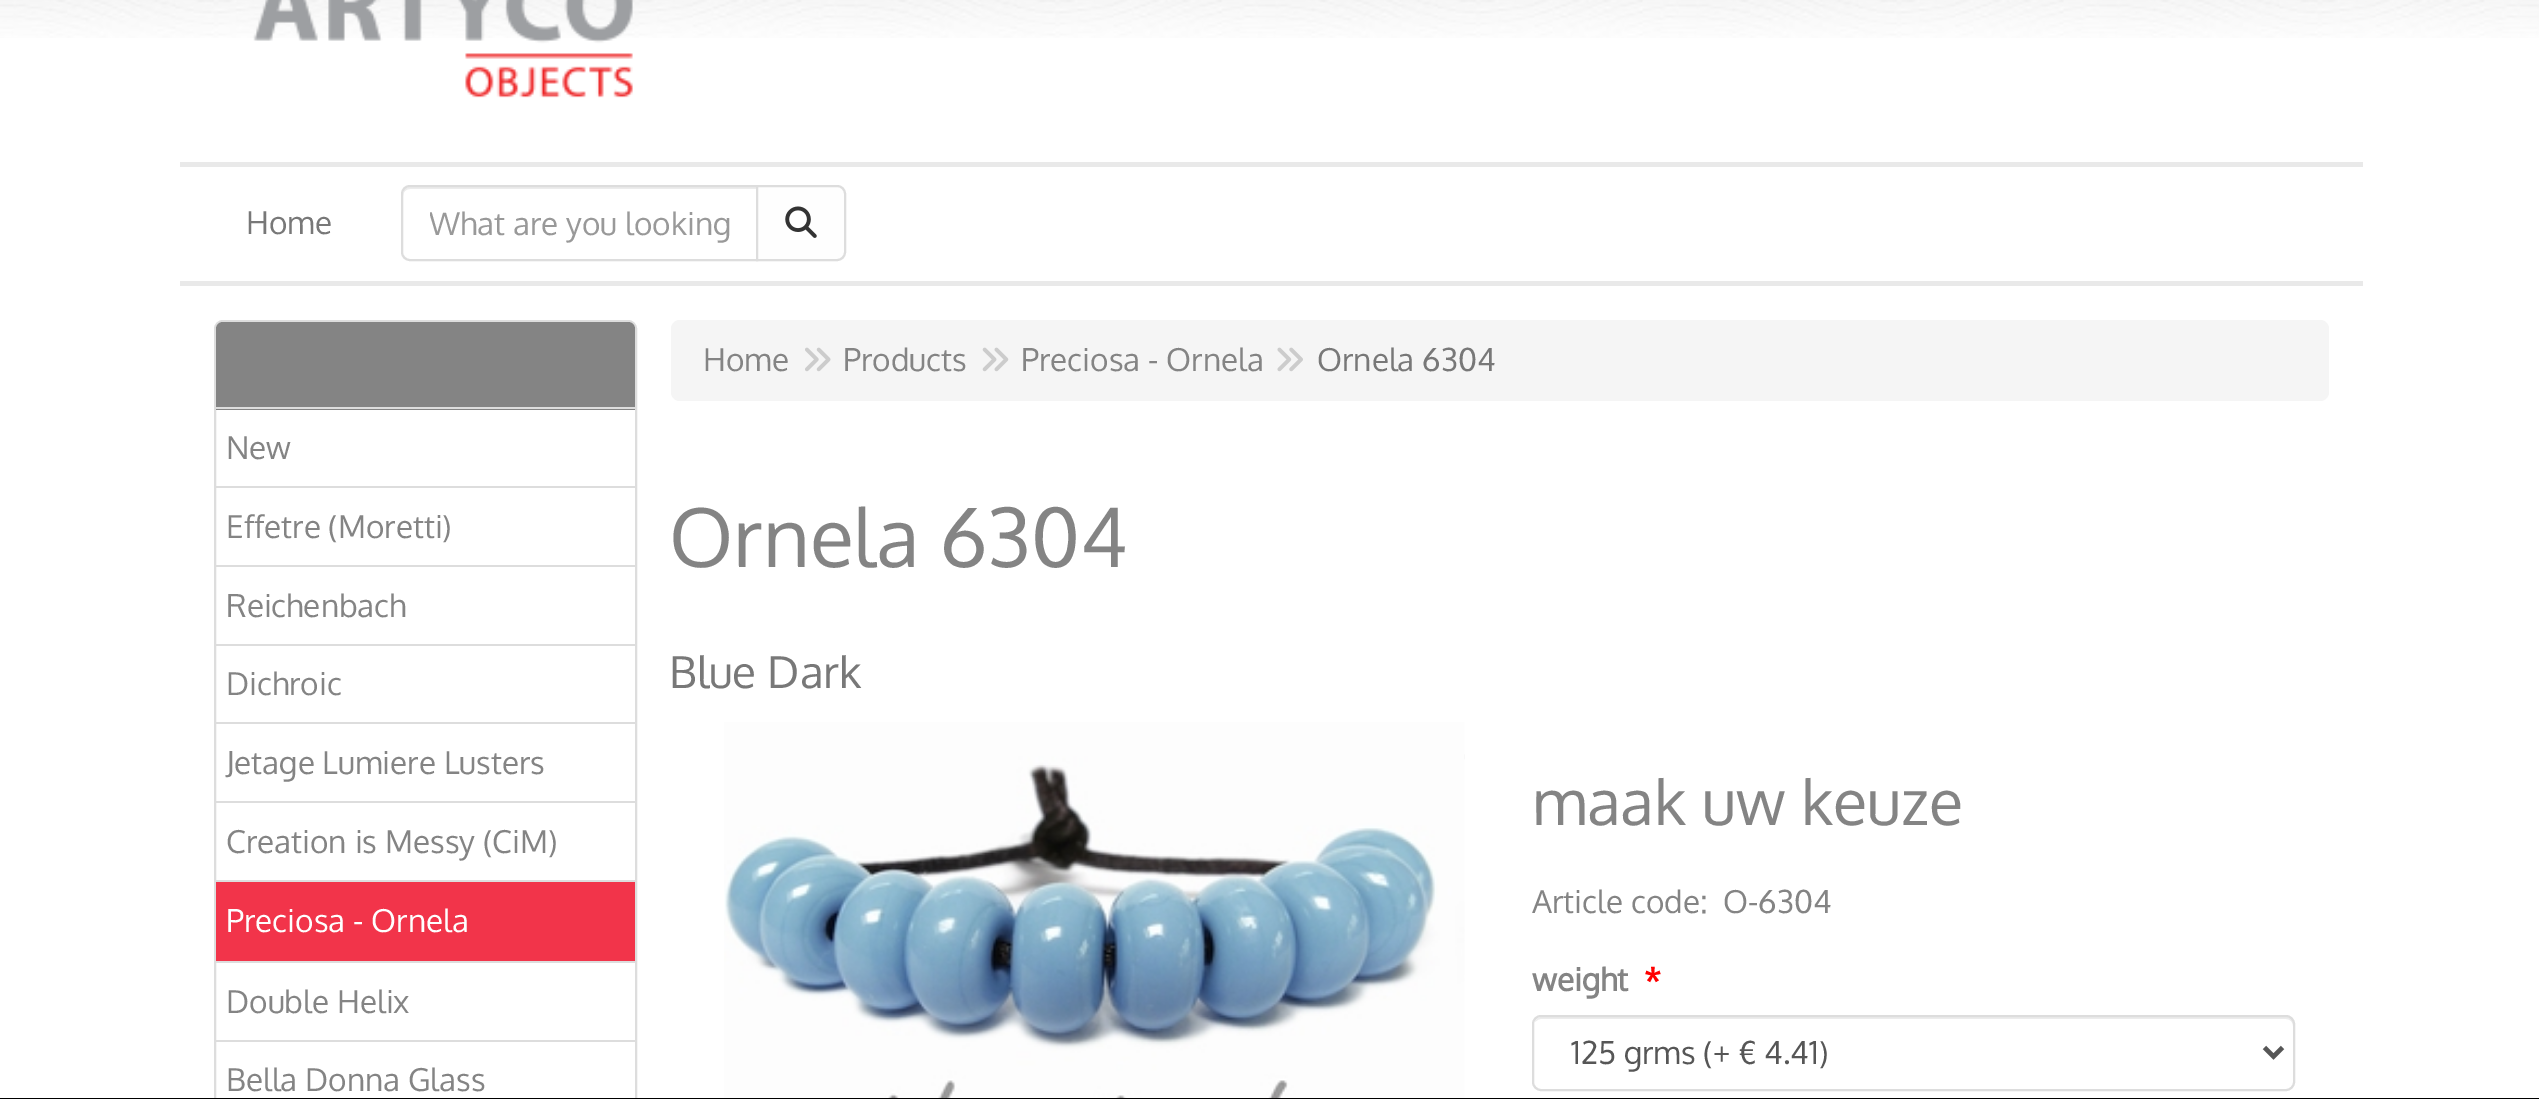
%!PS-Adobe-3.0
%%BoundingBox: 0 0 2539 1099
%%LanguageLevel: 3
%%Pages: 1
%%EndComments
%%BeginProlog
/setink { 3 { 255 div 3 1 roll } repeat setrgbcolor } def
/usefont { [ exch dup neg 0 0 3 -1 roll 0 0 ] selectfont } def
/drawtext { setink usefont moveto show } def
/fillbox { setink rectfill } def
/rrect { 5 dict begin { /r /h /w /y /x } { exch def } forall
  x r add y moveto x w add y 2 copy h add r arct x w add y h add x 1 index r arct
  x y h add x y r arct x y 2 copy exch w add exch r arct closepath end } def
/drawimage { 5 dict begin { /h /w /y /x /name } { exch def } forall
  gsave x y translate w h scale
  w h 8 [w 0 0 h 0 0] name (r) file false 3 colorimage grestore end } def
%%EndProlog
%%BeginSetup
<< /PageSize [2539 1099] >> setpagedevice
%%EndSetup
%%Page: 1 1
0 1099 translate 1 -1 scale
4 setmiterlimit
0 0 2539 1099 255 255 255 fillbox
(assets/img1.rgb) 0 0 2539 38 drawimage
180 162 2183 5 233 233 233 fillbox
(assets/img2.rgb) 253 0 380 98 drawimage
(Home) 246 234 /Oxygen-Regular 31.5 120 120 120 drawtext
236 236 236 setink
410 189 moveto 756 189 lineto 756 187 lineto 410 187 lineto 405 187 403 192 403 196 curveto 403 192 406 189 410 189 curveto closepath fill
221 221 221 setink
2 setlinewidth
410 186 moveto 757 186 lineto 757 260 lineto 410 260 lineto 405.5 260 402 256.5 402 252 curveto 402 194 lineto 402 189.5 405.5 186 410 186 curveto closepath stroke
gsave
430 205 304 38 rectclip
(What are you looking) 429 235 /Oxygen-Regular 31.5 153 153 153 drawtext
grestore
254 254 254 setink
757 186 moveto 837 186 lineto 841.5 186 845 189.5 845 194 curveto 845 252 lineto 845 256.5 841.5 260 837 260 curveto 757 260 lineto closepath gsave fill grestore
221 221 221 setink
stroke
(assets/img3.rgb) 785 206 32 32 drawimage
180 281 2183 5 233 233 233 fillbox
221 221 221 setink
215 321 421 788 8 rrect stroke
132 132 132 setink
223 322 moveto 628 322 lineto 632 322 635 325 635 329 curveto 635 410 lineto 216 410 lineto 216 329 lineto 216 325 219 322 223 322 curveto closepath fill
216 407 419 2 221 221 221 fillbox
(New) 226 459 /Oxygen-Regular 31.5 132 132 132 drawtext
216 486 419 2 221 221 221 fillbox
(Effetre \(Moretti\)) 226 538 /Oxygen-Regular 31.5 132 132 132 drawtext
216 565 419 2 221 221 221 fillbox
(Reichenbach) 226 617 /Oxygen-Regular 31.5 132 132 132 drawtext
216 644 419 2 221 221 221 fillbox
(Dichroic) 226 695 /Oxygen-Regular 31.5 132 132 132 drawtext
216 722 419 2 221 221 221 fillbox
(Jetage Lumiere Lusters) 226 774 /Oxygen-Regular 31.5 132 132 132 drawtext
216 801 419 2 221 221 221 fillbox
(Creation is Messy \(CiM\)) 226 853 /Oxygen-Regular 31.5 132 132 132 drawtext
216 882 419 79 242 52 74 fillbox
216 880 419 2 221 221 221 fillbox
(Preciosa - Ornela) 226 932 /Oxygen-Regular 31.5 254 254 254 drawtext
216 961 419 2 221 221 221 fillbox
(Double Helix) 226 1013 /Oxygen-Regular 31.5 132 132 132 drawtext
216 1040 419 2 221 221 221 fillbox
(Bella Donna Glass) 226 1091 /Oxygen-Regular 31.5 132 132 132 drawtext
245 245 245 setink
671 320 1658 81 9 rrect fill
(Home) 703 371 /Oxygen-Regular 31.5 132 132 132 drawtext
(assets/img4.rgb) 805 347 26 25 drawimage
(Products) 843 371 /Oxygen-Regular 31.5 132 132 132 drawtext
(assets/img5.rgb) 982 347 27 25 drawimage
(Preciosa - Ornela) 1021 371 /Oxygen-Regular 31.5 132 132 132 drawtext
(assets/img6.rgb) 1277 347 26 25 drawimage
(Ornela 6304) 1317 371 /Oxygen-Regular 31.5 120 120 120 drawtext
(Ornela 6304) 669 567 /Oxygen-Regular 81 132 132 132 drawtext
(Blue Dark) 669 688 /Oxygen-Regular 44 120 120 120 drawtext
(assets/img8.rgb) 1464 754 1 6 drawimage
(assets/img7.rgb) 724 722 741 376 drawimage
(maak uw keuze) 1532 825 /Oxygen-Regular 63 132 132 132 drawtext
(Article code:) 1532 913 /Oxygen-Regular 31.5 132 132 132 drawtext
(O-6304) 1723 913 /Oxygen-Regular 31.5 132 132 132 drawtext
(weight) 1532 991 /Oxygen-Bold 31.5 132 132 132 drawtext
(*) 1644 991 /Oxygen-Bold 31.5 255 0 0 drawtext
236 236 236 setink
1541 1019 moveto 2286 1019 lineto 2290 1019 2293 1022 2293 1026 curveto 2293 1024 lineto 2293 1020 2290 1017 2286 1017 curveto 1542 1017 lineto 1539 1017 1536 1019 1535 1022 curveto 1537 1020 1539 1019 1541 1019 curveto closepath fill
221 221 221 setink
1533 1016 761 74 8 rrect stroke
86 86 86 setink
4.5 setlinewidth
2264.5 1047.5 moveto 2273.5 1056.5 lineto 2282.5 1047.5 lineto stroke
(125 grms \(+ € 4.41\)) 1571 1064 /Oxygen-Regular 31.5 86 86 86 drawtext
0 1098 2539 1 0 0 0 fillbox
showpage
%%EOF
